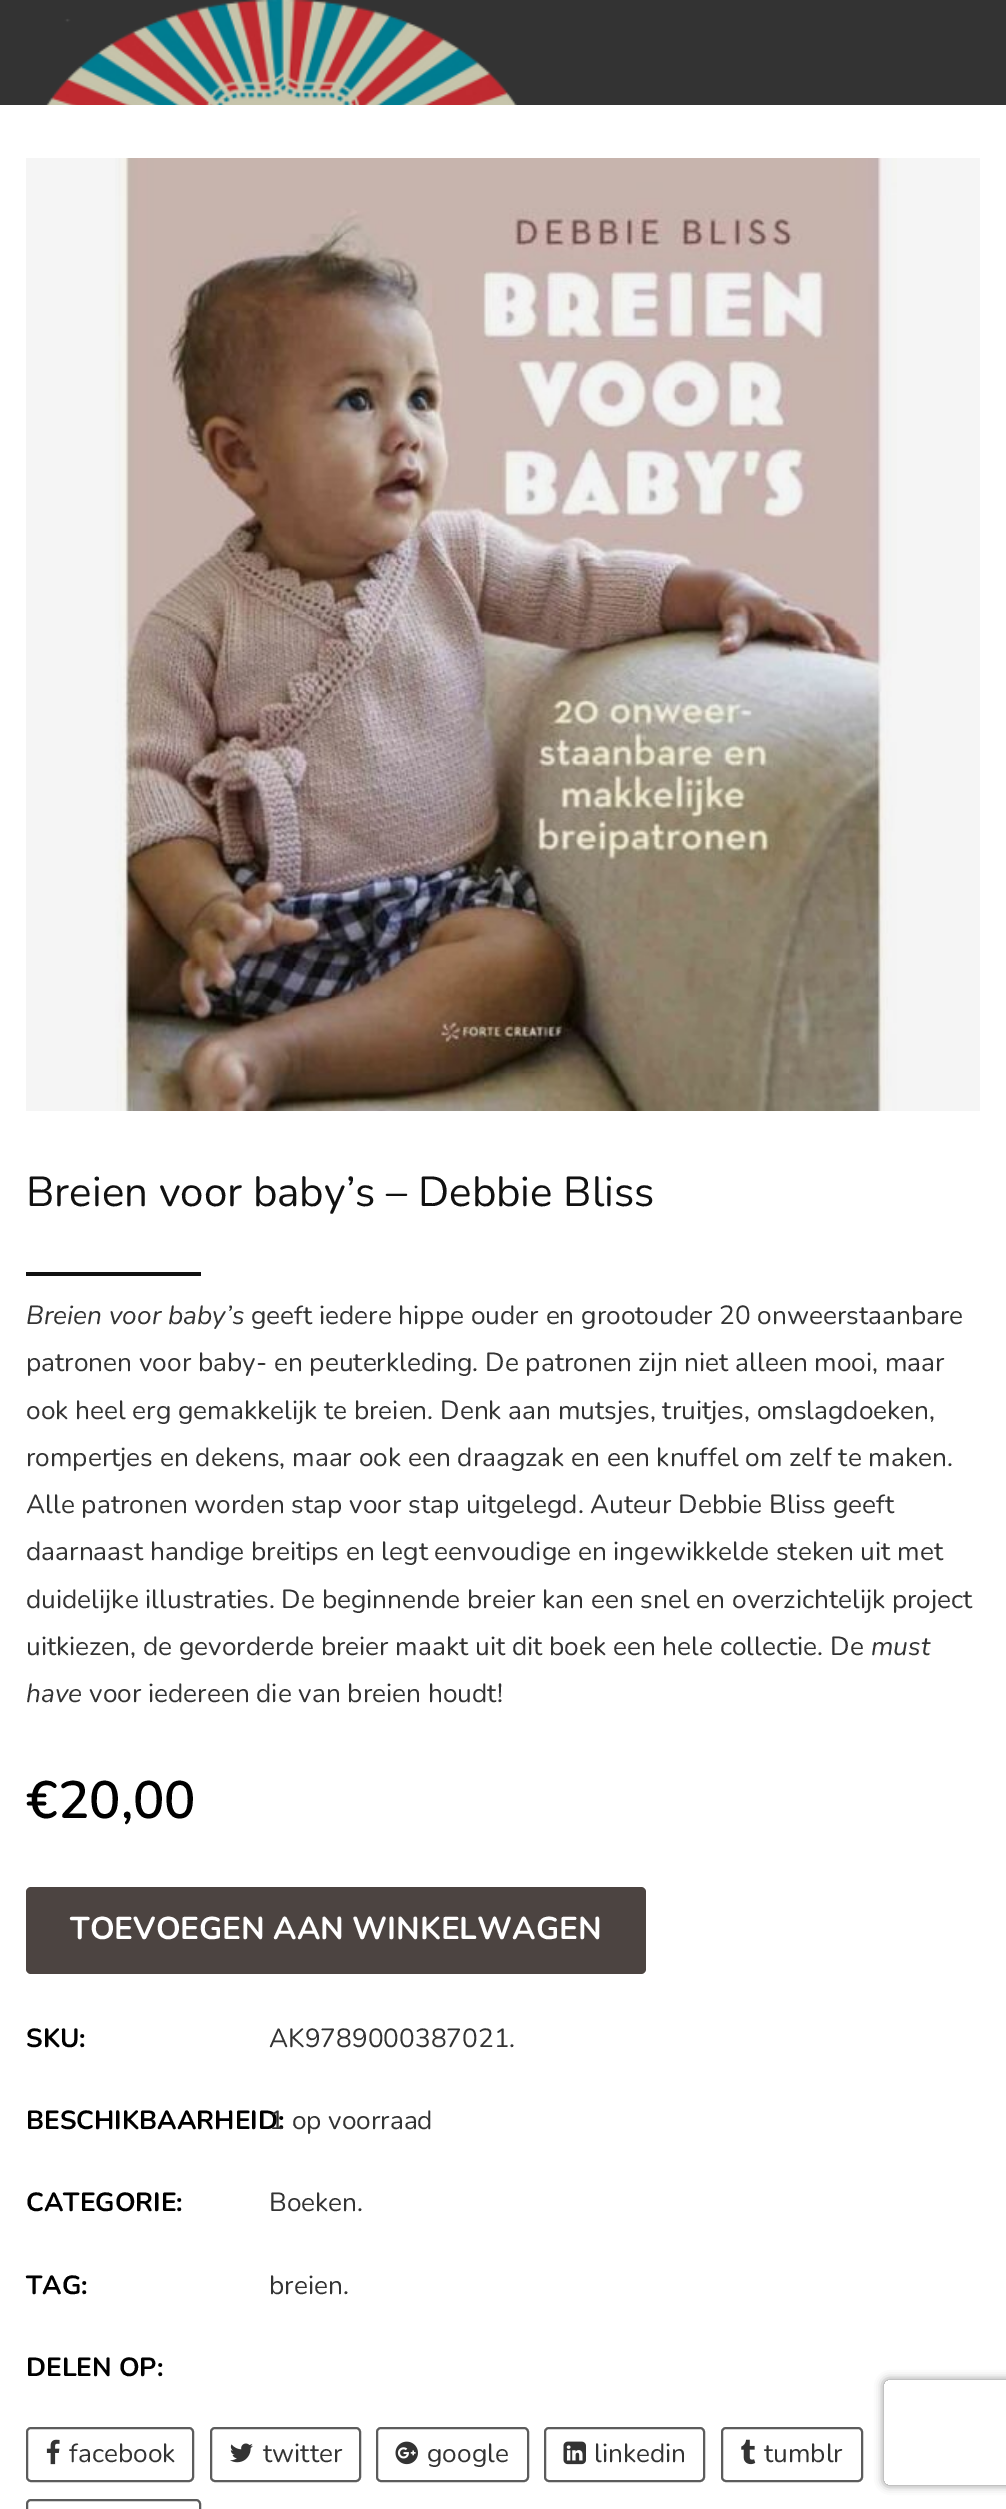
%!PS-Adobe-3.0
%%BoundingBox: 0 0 1006 2509
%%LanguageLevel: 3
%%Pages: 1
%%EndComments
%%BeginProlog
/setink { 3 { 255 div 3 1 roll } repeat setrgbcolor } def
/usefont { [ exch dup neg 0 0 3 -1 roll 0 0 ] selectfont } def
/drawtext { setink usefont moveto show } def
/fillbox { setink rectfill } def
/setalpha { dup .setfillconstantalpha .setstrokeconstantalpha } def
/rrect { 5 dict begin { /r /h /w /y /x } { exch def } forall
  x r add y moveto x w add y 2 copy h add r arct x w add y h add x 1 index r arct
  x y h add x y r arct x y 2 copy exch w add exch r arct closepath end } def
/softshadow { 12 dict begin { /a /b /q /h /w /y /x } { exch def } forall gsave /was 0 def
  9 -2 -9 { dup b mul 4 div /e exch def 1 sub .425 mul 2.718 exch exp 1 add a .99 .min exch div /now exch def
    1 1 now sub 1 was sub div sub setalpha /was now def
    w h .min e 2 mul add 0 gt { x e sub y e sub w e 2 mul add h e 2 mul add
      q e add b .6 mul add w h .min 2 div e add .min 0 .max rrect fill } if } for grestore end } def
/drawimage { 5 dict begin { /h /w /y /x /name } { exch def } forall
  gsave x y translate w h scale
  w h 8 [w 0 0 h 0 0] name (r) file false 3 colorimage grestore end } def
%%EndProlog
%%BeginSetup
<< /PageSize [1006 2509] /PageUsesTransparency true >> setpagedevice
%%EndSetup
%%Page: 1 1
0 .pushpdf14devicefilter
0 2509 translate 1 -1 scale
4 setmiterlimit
0 0 1006 2509 51 51 51 fillbox
(assets/img1.rgb) 45 0 472 105 drawimage
0 105 1006 2404 255 255 255 fillbox
(assets/img2.rgb) 115 158 782 953 drawimage
0.04 setalpha
26 158 954 953 0 0 0 fillbox
1 setalpha
(Breien voor baby’s – Debbie Bliss) 26 1206 /Nunito-Regular 42 17 17 17 drawtext
26 1272 175 4 17 17 17 fillbox
(Breien voor baby’s) 26 1324 /Nunito-Italic 26.25 51 51 51 drawtext
(geeft iedere hippe ouder en grootouder 20 onweerstaanbare) 251 1324 /Nunito-Regular 26.25 51 51 51 drawtext
(patronen voor baby- en peuterkleding. De patronen zijn niet alleen mooi, maar) 26 1371 /Nunito-Regular 26.25 51 51 51 drawtext
(ook heel erg gemakkelijk te breien. Denk aan mutsjes, truitjes, omslagdoeken,) 26 1419 /Nunito-Regular 26.25 51 51 51 drawtext
(rompertjes en dekens, maar ook een draagzak en een knuffel om zelf te maken.) 26 1466 /Nunito-Regular 26.25 51 51 51 drawtext
(Alle patronen worden stap voor stap uitgelegd. Auteur Debbie Bliss geeft) 26 1513 /Nunito-Regular 26.25 51 51 51 drawtext
(daarnaast handige breitips en legt eenvoudige en ingewikkelde steken uit met) 26 1560 /Nunito-Regular 26.25 51 51 51 drawtext
(duidelijke illustraties. De beginnende breier kan een snel en overzichtelijk project) 26 1608 /Nunito-Regular 26.25 51 51 51 drawtext
(uitkiezen, de gevorderde breier maakt uit dit boek een hele collectie. De) 26 1655 /Nunito-Regular 26.25 51 51 51 drawtext
(must) 871 1655 /Nunito-Italic 26.25 51 51 51 drawtext
(have) 26 1702 /Nunito-Italic 26.25 51 51 51 drawtext
(voor iedereen die van breien houdt!) 89 1702 /Nunito-Regular 26.25 51 51 51 drawtext
(€20,00) 26 1818 /Nunito-SemiBold 52.5 0 0 0 drawtext
76 68 65 setink
26 1887 620 87 5 rrect fill
(TOEVOEGEN AAN WINKELWAGEN) 70 1939 /Nunito-Bold 31.5 255 255 255 drawtext
(SKU:) 26 2047 /Nunito-Bold 26.25 0 0 0 drawtext
(AK9789000387021.) 269 2047 /Nunito-Regular 26.25 51 51 51 drawtext
(BESCHIKBAARHEID:) 26 2129 /Nunito-Bold 26.25 0 0 0 drawtext
(1 op voorraad) 269 2129 /Nunito-Regular 26.25 51 51 51 drawtext
(CATEGORIE:) 26 2211 /Nunito-Bold 26.25 0 0 0 drawtext
(Boeken.) 269 2211 /Nunito-Regular 26.25 51 51 51 drawtext
(TAG:) 26 2294 /Nunito-Bold 26.25 0 0 0 drawtext
(breien.) 269 2294 /Nunito-Regular 26.25 51 51 51 drawtext
(DELEN OP:) 26 2376 /Nunito-Bold 26.25 0 0 0 drawtext
92 92 92 setink
2 setlinewidth
27 2428 166 53 4 rrect stroke
(assets/img3.rgb) 46 2439 14 26 drawimage
(facebook) 69 2462 /Nunito-Regular 26.25 51 51 51 drawtext
92 92 92 setink
211 2428 149 53 4 rrect stroke
(assets/img4.rgb) 230 2443 23 20 drawimage
(twitter) 263 2462 /Nunito-Regular 26.25 51 51 51 drawtext
92 92 92 setink
377 2428 151 53 4 rrect stroke
(assets/img5.rgb) 395 2441 23 24 drawimage
(google) 427 2462 /Nunito-Regular 26.25 51 51 51 drawtext
92 92 92 setink
545 2428 159 53 4 rrect stroke
(assets/img6.rgb) 563 2441 23 24 drawimage
(linkedin) 594 2462 /Nunito-Regular 26.25 51 51 51 drawtext
92 92 92 setink
722 2428 140 53 4 rrect stroke
(assets/img7.rgb) 741 2439 15 26 drawimage
(tumblr) 764 2462 /Nunito-Regular 26.25 51 51 51 drawtext
92 92 92 setink
27 2500 173 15 4 rrect stroke
gsave
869 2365 moveto 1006 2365 lineto 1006 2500 lineto 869 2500 lineto closepath 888 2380 moveto 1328 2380 lineto 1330 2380 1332 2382 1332 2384 curveto 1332 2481 lineto 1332 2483 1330 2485 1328 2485 curveto 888 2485 lineto 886 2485 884 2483 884 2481 curveto 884 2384 lineto 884 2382 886 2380 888 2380 curveto closepath eoclip newpath
128 128 128 setink
884 2380 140 105 4 4.5 1 softshadow
grestore
.poppdf14devicefilter showpage
%%EOF
